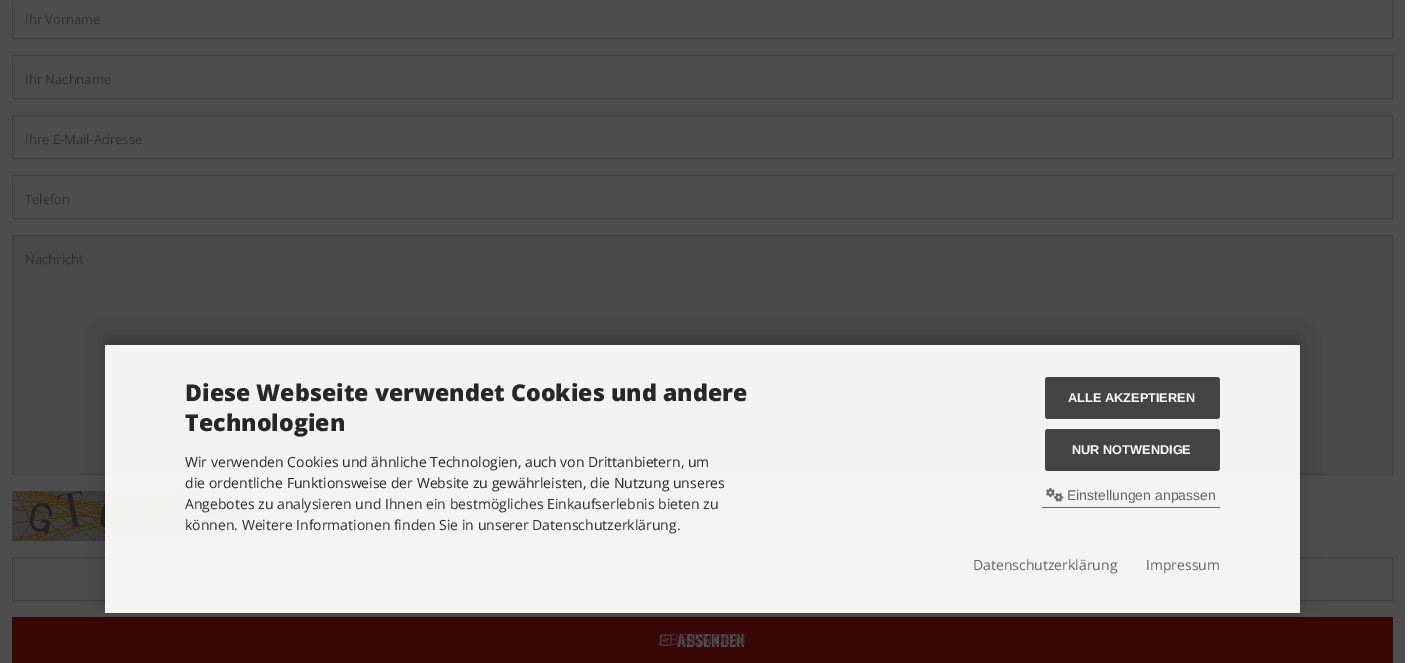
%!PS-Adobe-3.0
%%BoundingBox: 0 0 1415 663
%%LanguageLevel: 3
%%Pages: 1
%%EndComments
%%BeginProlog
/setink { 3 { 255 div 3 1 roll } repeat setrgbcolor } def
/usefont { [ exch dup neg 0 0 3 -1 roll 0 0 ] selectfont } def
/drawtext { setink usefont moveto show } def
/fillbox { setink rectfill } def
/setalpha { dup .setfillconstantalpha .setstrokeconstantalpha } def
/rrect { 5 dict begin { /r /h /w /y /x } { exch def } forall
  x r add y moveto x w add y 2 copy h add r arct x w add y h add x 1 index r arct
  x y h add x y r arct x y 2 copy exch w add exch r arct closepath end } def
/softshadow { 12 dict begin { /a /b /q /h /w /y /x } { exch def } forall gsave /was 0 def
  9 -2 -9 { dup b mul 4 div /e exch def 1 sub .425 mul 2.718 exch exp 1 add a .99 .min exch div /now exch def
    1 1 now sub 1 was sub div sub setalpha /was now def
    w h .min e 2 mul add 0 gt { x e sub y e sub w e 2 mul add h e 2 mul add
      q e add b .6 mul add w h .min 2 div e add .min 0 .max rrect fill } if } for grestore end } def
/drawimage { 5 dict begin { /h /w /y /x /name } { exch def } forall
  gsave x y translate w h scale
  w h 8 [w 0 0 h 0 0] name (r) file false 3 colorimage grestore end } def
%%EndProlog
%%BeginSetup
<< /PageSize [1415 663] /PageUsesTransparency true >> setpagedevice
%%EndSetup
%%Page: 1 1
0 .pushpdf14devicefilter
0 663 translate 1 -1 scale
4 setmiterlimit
0 0 1415 663 255 255 255 fillbox
0 0 1405 663 77 77 77 fillbox
65 65 65 setink
12.5 -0.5 1380 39 rectstroke
(Ihr Vorname) 25 24 /OpenSans-Regular 13 46 46 46 drawtext
65 65 65 setink
12.5 55.5 1380 43 rectstroke
(Ihr Nachname) 25 84 /OpenSans-Regular 13 46 46 46 drawtext
65 65 65 setink
12.5 115.5 1380 43 rectstroke
(Ihre E-Mail-Adresse) 25 144 /OpenSans-Regular 13 46 46 46 drawtext
65 65 65 setink
12.5 175.5 1380 43 rectstroke
(Telefon) 25 204 /OpenSans-Regular 13 46 46 46 drawtext
73 73 73 setink
12.5 235.5 moveto 1392.5 235.5 lineto 1392.5 474.5 lineto 12.5 474.5 lineto closepath gsave fill grestore
65 65 65 setink
stroke
(Nachricht) 25 264 /OpenSans-Regular 13 46 46 46 drawtext
(assets/img1.rgb) 12 491 240 50 drawimage
65 65 65 setink
12.5 557.5 1380 43 rectstroke
12 617 1381 46 55 7 6 fillbox
(assets/img2.rgb) 660 634 12 12 drawimage
(ABSENDEN) 677 647 /Oswald-Bold 16 77 77 77 drawtext
(ABSENDEN) 658 645 /LiberationSans-Regular 16 66 43 43 drawtext
gsave
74 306 moveto 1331 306 lineto 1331 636 lineto 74 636 lineto closepath 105 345 moveto 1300 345 lineto 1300 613 lineto 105 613 lineto closepath eoclip newpath
0 0 0 setink
105 337 1195 268 0 10 0.19 softshadow
grestore
0.97 setalpha
105 345 1195 268 249 249 249 fillbox
1 setalpha
(Diese Webseite verwendet Cookies und andere) 185 401 /OpenSans-ExtraBold 23.2 39 39 39 drawtext
(Technologien) 185 431 /OpenSans-ExtraBold 23.2 39 39 39 drawtext
(Wir verwenden Cookies und ähnliche Technologien, auch von Drittanbietern, um) 185 467 /OpenSans-Regular 14 39 39 39 drawtext
(die ordentliche Funktionsweise der Website zu gewährleisten, die Nutzung unseres) 185 488 /OpenSans-Regular 14 39 39 39 drawtext
(Angebotes zu analysieren und Ihnen ein bestmögliches Einkaufserlebnis bieten zu) 185 509 /OpenSans-Regular 14 46 46 46 drawtext
(können. Weitere Informationen finden Sie in unserer Datenschutzerklärung.) 185 530 /OpenSans-Regular 14 46 46 46 drawtext
68 68 68 setink
1045 377 175 42 3 rrect fill
(ALLE AKZEPTIEREN) 1068 402 /LiberationSans-Bold 12.75 250 250 250 drawtext
68 68 68 setink
1045 429 175 42 3 rrect fill
(NUR NOTWENDIGE) 1072 454 /LiberationSans-Bold 12.75 250 250 250 drawtext
1042 507 178 1 101 101 101 fillbox
(assets/img3.rgb) 1046 488 18 14 drawimage
(Einstellungen anpassen) 1067 500 /LiberationSans-Regular 14 101 101 101 drawtext
(Datenschutzerklärung) 973 570 /OpenSans-Regular 14 101 101 101 drawtext
(Impressum) 1146 570 /OpenSans-Regular 14 101 101 101 drawtext
.poppdf14devicefilter showpage
%%EOF
